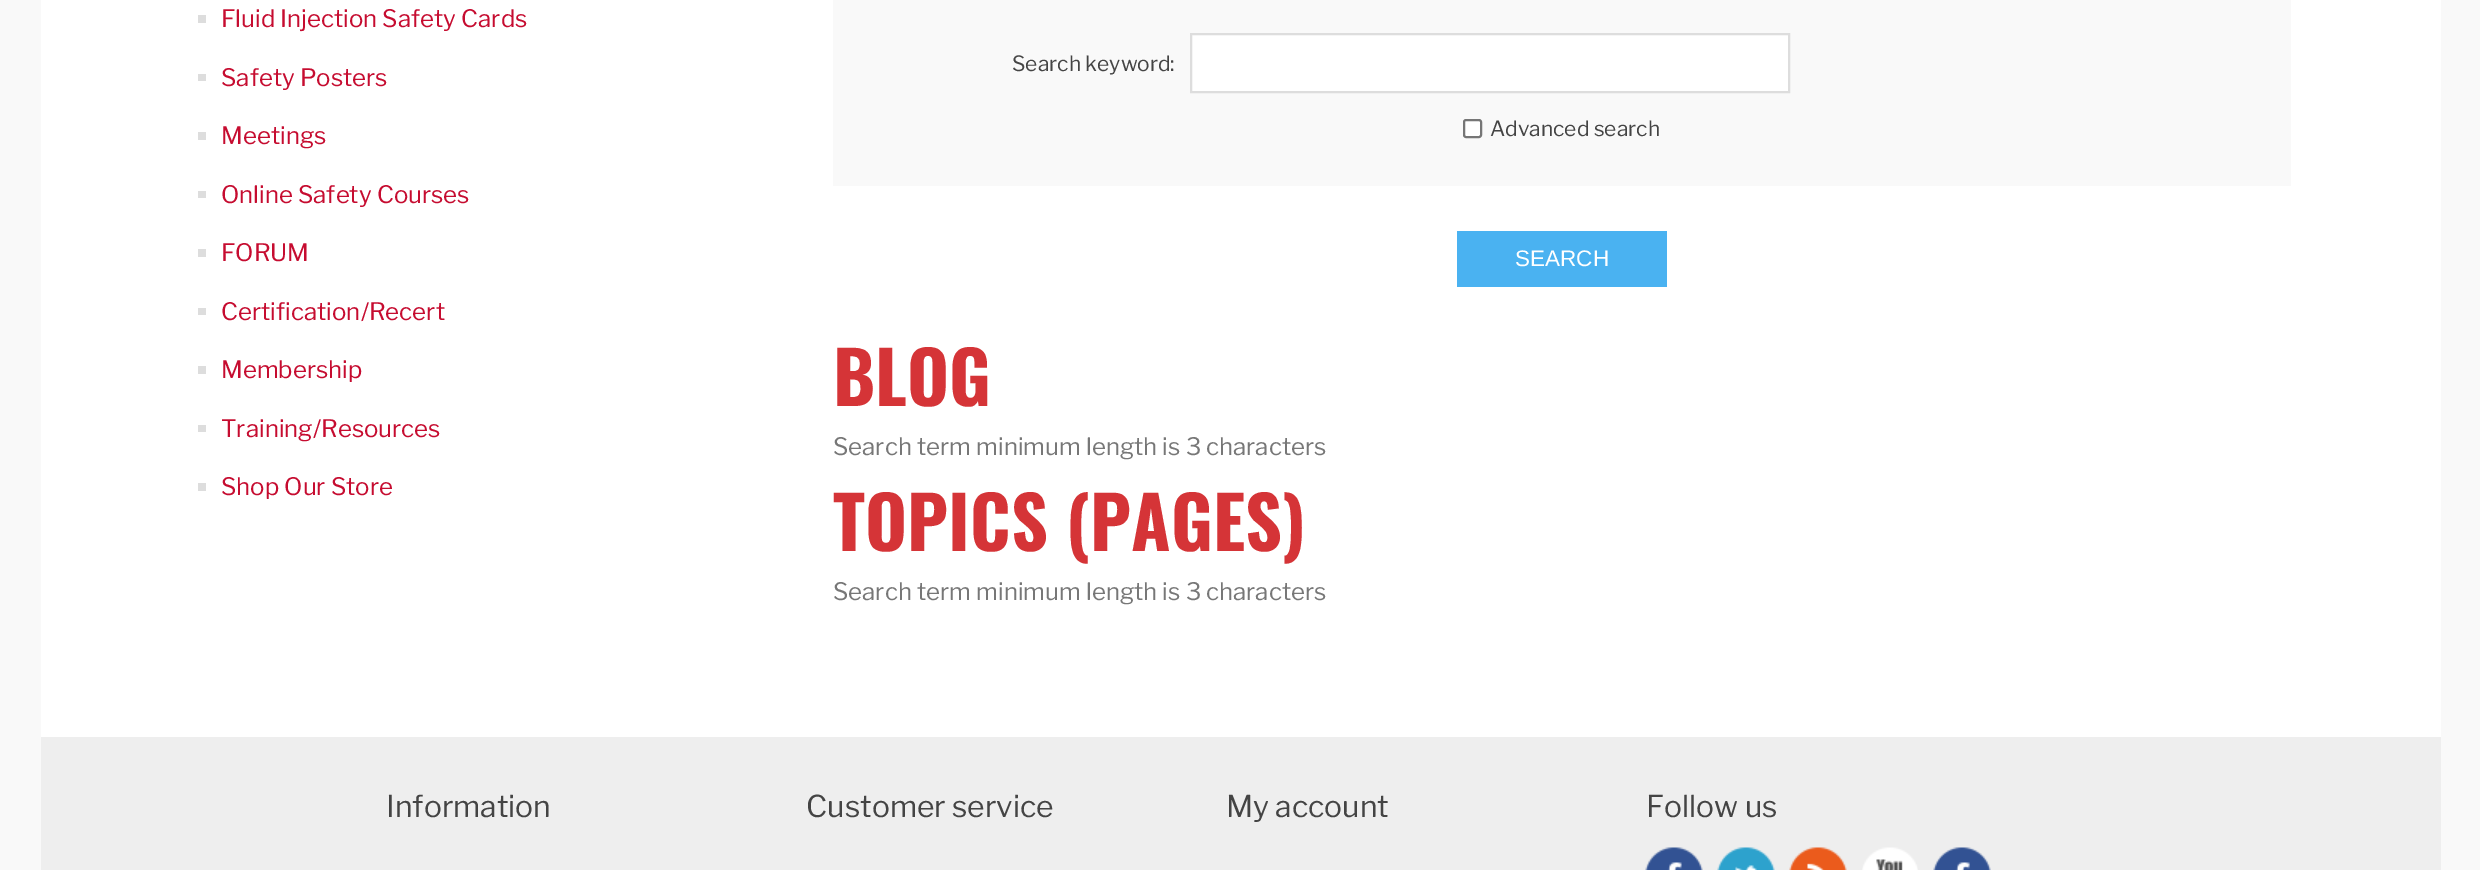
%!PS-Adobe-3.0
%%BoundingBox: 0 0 2480 870
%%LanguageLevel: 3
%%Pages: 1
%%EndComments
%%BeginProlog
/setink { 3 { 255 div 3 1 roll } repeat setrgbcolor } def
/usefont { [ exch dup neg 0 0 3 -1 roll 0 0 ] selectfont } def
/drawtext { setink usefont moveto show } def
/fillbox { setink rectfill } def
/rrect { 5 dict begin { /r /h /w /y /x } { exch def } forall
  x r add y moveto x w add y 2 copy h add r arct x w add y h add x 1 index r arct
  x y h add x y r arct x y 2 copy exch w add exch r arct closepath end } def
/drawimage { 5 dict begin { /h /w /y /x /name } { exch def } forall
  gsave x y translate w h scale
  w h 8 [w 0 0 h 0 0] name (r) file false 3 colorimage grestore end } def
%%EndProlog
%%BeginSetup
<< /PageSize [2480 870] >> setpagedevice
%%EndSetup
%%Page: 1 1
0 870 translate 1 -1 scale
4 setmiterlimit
0 0 2480 870 249 249 249 fillbox
41 0 2400 737 255 255 255 fillbox
198 15 8 8 221 221 221 fillbox
(Fluid Injection Safety Cards) 221 27 /LibreFranklin-Regular 24 198 12 48 drawtext
198 74 8 7 221 221 221 fillbox
(Safety Posters) 221 86 /LibreFranklin-Regular 24 198 12 48 drawtext
198 132 8 8 221 221 221 fillbox
(Meetings) 221 144 /LibreFranklin-Regular 24 198 12 48 drawtext
198 191 8 7 221 221 221 fillbox
(Online Safety Courses) 221 203 /LibreFranklin-Regular 24 198 12 48 drawtext
198 249 8 8 221 221 221 fillbox
(FORUM) 221 261 /LibreFranklin-Regular 24 198 12 48 drawtext
198 308 8 7 221 221 221 fillbox
(Certification/Recert) 221 320 /LibreFranklin-Regular 24 198 12 48 drawtext
198 366 8 8 221 221 221 fillbox
(Membership) 221 378 /LibreFranklin-Regular 24 198 12 48 drawtext
198 425 8 7 221 221 221 fillbox
(Training/Resources) 221 437 /LibreFranklin-Regular 24 198 12 48 drawtext
198 483 8 8 221 221 221 fillbox
(Shop Our Store) 221 495 /LibreFranklin-Regular 24 198 12 48 drawtext
833 0 1458 186 249 249 249 fillbox
(Search keyword:) 1012 71 /LibreFranklin-Regular 21 68 68 68 drawtext
255 255 255 setink
1191 34 moveto 1789 34 lineto 1789 92 lineto 1191 92 lineto closepath gsave fill grestore
221 221 221 setink
2 setlinewidth
stroke
255 255 255 setink
1464 120 17 17 2 rrect gsave fill grestore
118 118 118 setink
stroke
(Advanced search) 1490 136 /LibreFranklin-Regular 21 68 68 68 drawtext
1457 231 210 56 74 178 241 fillbox
(SEARCH) 1515 266 /LiberationSans-Regular 22.5 255 255 255 drawtext
(BLOG) 833 406 /Oswald-Bold 72 213 52 55 drawtext
(Search term minimum length is 3 characters) 833 455 /LibreFranklin-Regular 24 119 119 119 drawtext
(TOPICS \(PAGES\)) 833 551 /Oswald-Bold 72 213 52 55 drawtext
(Search term minimum length is 3 characters) 833 600 /LibreFranklin-Regular 24 119 119 119 drawtext
41 737 2400 133 238 238 238 fillbox
(Information) 386 817 /LibreFranklin-Regular 30 68 68 68 drawtext
(Customer service) 806 817 /LibreFranklin-Regular 30 68 68 68 drawtext
(My account) 1226 817 /LibreFranklin-Regular 30 68 68 68 drawtext
(Follow us) 1646 817 /LibreFranklin-Regular 30 68 68 68 drawtext
(assets/img1.rgb) 1645 847 58 23 drawimage
(assets/img2.rgb) 1717 847 58 23 drawimage
(assets/img3.rgb) 1789 847 58 23 drawimage
(assets/img4.rgb) 1862 847 56 23 drawimage
(assets/img5.rgb) 1933 847 58 23 drawimage
showpage
%%EOF
